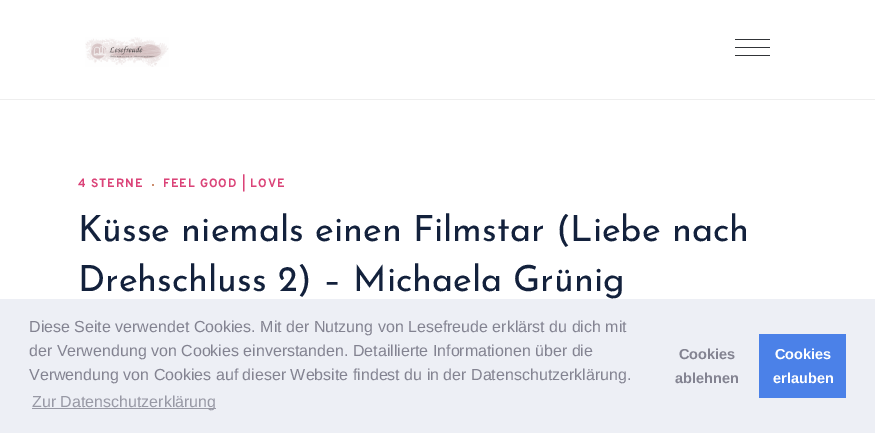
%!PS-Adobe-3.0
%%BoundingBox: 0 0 875 433
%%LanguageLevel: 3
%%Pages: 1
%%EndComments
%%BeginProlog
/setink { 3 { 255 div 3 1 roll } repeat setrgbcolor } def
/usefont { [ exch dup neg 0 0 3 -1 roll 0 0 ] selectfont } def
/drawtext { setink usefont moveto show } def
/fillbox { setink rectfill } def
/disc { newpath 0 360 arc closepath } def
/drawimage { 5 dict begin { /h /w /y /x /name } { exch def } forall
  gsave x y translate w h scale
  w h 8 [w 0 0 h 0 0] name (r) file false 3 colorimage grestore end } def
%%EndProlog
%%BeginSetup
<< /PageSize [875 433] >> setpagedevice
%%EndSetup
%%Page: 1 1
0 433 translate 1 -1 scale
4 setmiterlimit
0 0 875 433 255 255 255 fillbox
(assets/img1.rgb) 85 37 84 30 drawimage
735 47 35 1 49 52 55 fillbox
735 39 35 1 49 52 55 fillbox
735 55 35 1 49 52 55 fillbox
0 99 875 1 238 238 238 fillbox
/Overpass-Bold 12 usefont
219 67 120 setink
78 187 moveto 1 0 (4 STERNE) ashow
201 134 100 setink
153 185 1 disc fill
219 67 120 setink
163 187 moveto 1 0 (FEEL GOOD | LOVE) ashow
(Küsse niemals einen Filmstar \(Liebe nach) 78 241 /JosefinSans-Regular 36 19 33 60 drawtext
(Drehschluss 2\) – Michaela Grünig) 78 291 /JosefinSans-Regular 36 19 33 60 drawtext
0 299 875 134 237 239 245 fillbox
(Diese Seite verwendet Cookies. Mit der Nutzung von Lesefreude erklärst du dich mit) 29 332 /LiberationSans-Regular 16 131 131 145 drawtext
(der Verwendung von Cookies einverstanden. Detaillierte Informationen über die) 29 356 /LiberationSans-Regular 16 131 131 145 drawtext
(Verwendung von Cookies auf dieser Website findest du in der Datenschutzerklärung.) 29 380 /LiberationSans-Regular 16 131 131 145 drawtext
32 408 184 1 152 153 165 fillbox
(Zur Datenschutzerklärung) 32 407 /LiberationSans-Regular 16 152 153 165 drawtext
(Cookies) 679 359 /LiberationSans-Bold 14.5 131 131 145 drawtext
(ablehnen) 675 383 /LiberationSans-Bold 14.5 131 131 145 drawtext
759 334 87 64 75 129 232 fillbox
(Cookies) 775 359 /LiberationSans-Bold 14.5 255 255 255 drawtext
(erlauben) 773 383 /LiberationSans-Bold 14.5 255 255 255 drawtext
showpage
%%EOF
